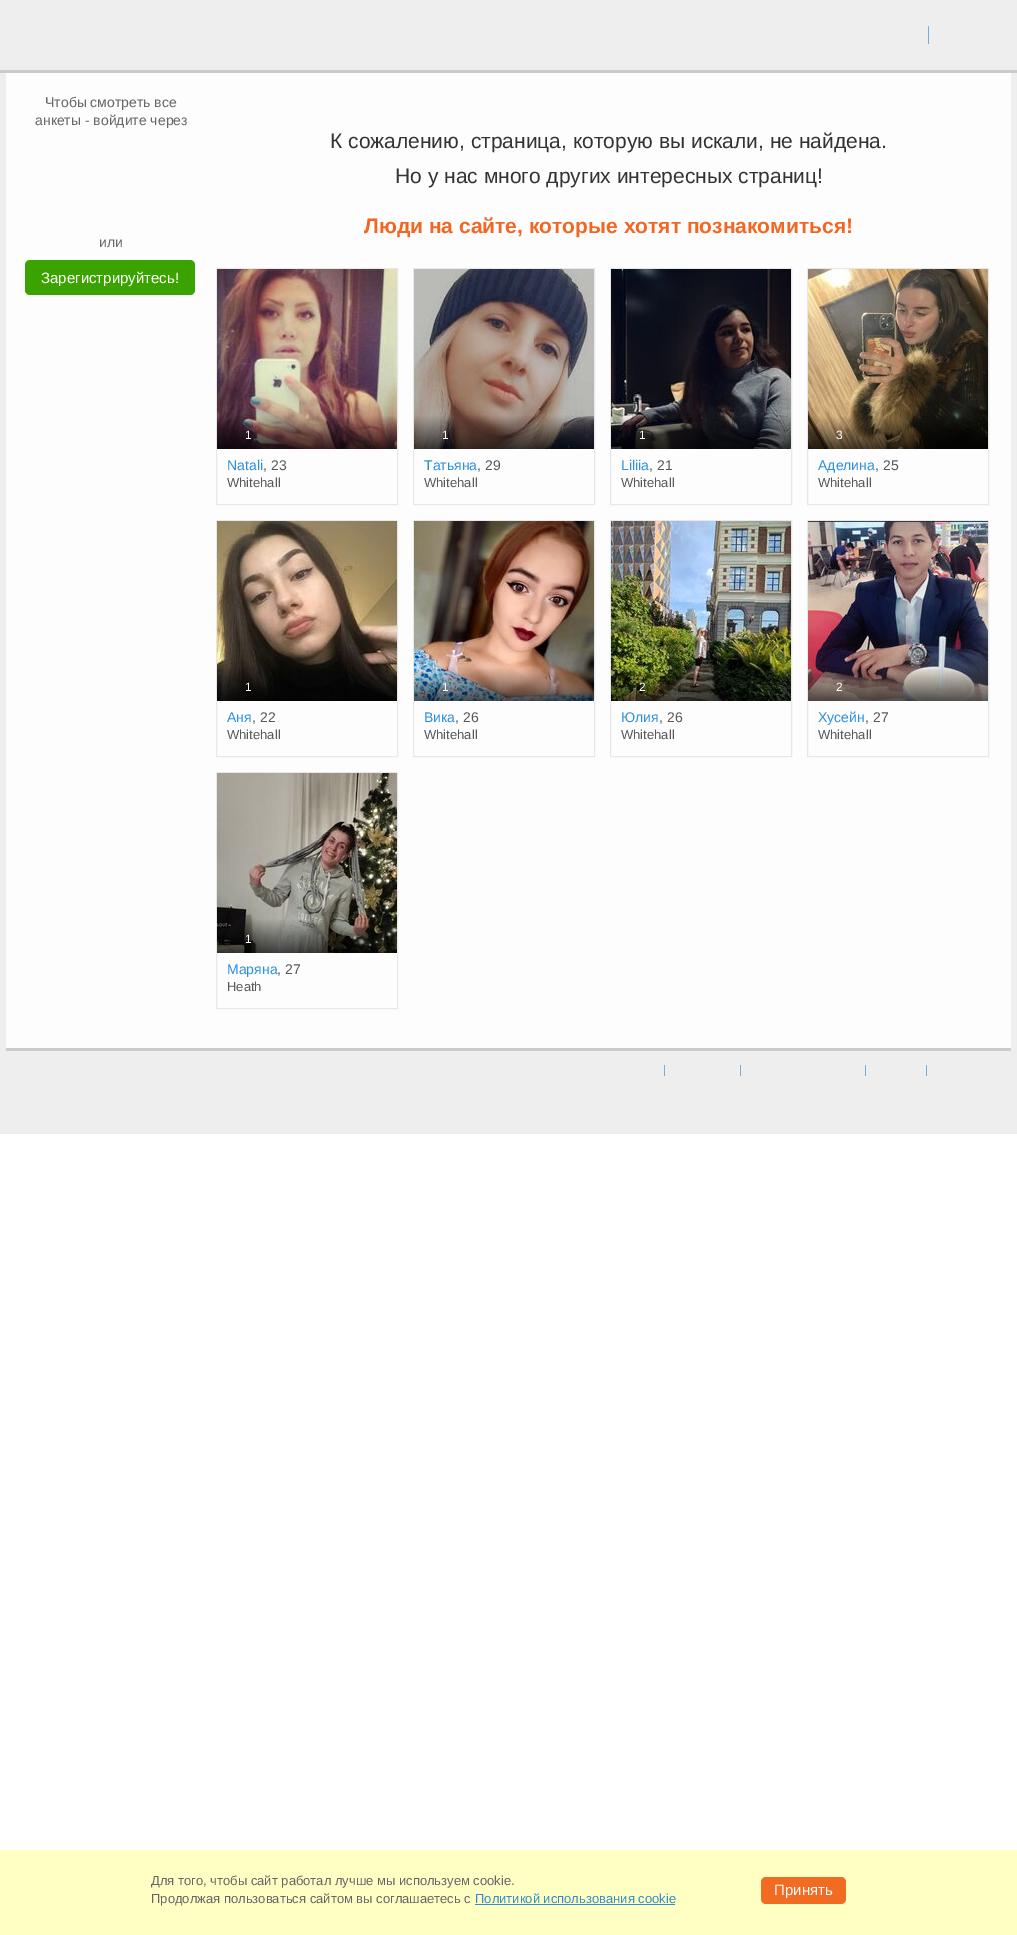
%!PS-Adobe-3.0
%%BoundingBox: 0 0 1017 1935
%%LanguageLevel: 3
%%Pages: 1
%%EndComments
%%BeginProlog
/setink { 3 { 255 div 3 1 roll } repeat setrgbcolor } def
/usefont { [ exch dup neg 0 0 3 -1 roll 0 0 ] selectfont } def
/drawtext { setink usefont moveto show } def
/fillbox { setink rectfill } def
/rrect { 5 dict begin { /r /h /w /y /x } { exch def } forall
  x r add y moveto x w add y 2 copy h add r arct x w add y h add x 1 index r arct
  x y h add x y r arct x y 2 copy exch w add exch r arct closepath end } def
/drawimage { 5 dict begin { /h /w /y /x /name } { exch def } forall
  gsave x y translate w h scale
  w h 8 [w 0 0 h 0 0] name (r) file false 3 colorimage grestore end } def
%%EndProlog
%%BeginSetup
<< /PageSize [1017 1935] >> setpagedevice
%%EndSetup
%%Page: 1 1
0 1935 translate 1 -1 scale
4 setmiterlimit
0 0 1017 1935 255 255 255 fillbox
0 0 1017 1134 238 238 238 fillbox
0 70 1017 3 203 203 201 fillbox
928 26 1 18 124 172 211 fillbox
6 73 1005 975 253 253 253 fillbox
(Чтобы смотреть все) 45 107 /LiberationSans-Regular 14 102 102 102 drawtext
(анкеты - войдите через) 35 125 /LiberationSans-Regular 14 102 102 102 drawtext
(или) 99 247 /LiberationSans-Regular 14 102 102 102 drawtext
59 163 0 setink
25 260 170 35 5 rrect fill
(Зарегистрируйтесь!) 41 283 /LiberationSans-Regular 15 255 255 255 drawtext
(К сожалению, страница, которую вы искали, не найдена.) 330 148 /LiberationSans-Regular 21 51 51 51 drawtext
(Но у нас много других интересных страниц!) 395 183 /LiberationSans-Regular 21 51 51 51 drawtext
(Люди на сайте, которые хотят познакомиться!) 364 233 /LiberationSans-Bold 21 242 102 34 drawtext
231 232 233 setink
216.5 268.5 181 236 rectstroke
(assets/img1.rgb) 217 269 180 180 drawimage
(1) 245 439 /LiberationSans-Regular 12 255 255 255 drawtext
(Natali) 227 470 /LiberationSans-Regular 14 44 143 219 drawtext
(, 23) 263 470 /LiberationSans-Regular 14 88 89 91 drawtext
(Whitehall) 227 487 /LiberationSans-Regular 13 88 89 91 drawtext
231 232 233 setink
413.5 268.5 181 236 rectstroke
(assets/img2.rgb) 414 269 180 180 drawimage
(1) 442 439 /LiberationSans-Regular 12 255 255 255 drawtext
(Татьяна) 424 470 /LiberationSans-Regular 14 44 143 219 drawtext
(, 29) 477 470 /LiberationSans-Regular 14 88 89 91 drawtext
(Whitehall) 424 487 /LiberationSans-Regular 13 88 89 91 drawtext
231 232 233 setink
610.5 268.5 181 236 rectstroke
(assets/img3.rgb) 611 269 180 180 drawimage
(1) 639 439 /LiberationSans-Regular 12 255 255 255 drawtext
(Liliia) 621 470 /LiberationSans-Regular 14 44 143 219 drawtext
(, 21) 649 470 /LiberationSans-Regular 14 88 89 91 drawtext
(Whitehall) 621 487 /LiberationSans-Regular 13 88 89 91 drawtext
231 232 233 setink
807.5 268.5 181 236 rectstroke
(assets/img4.rgb) 808 269 180 180 drawimage
(3) 836 439 /LiberationSans-Regular 12 255 255 255 drawtext
(Аделина) 818 470 /LiberationSans-Regular 14 44 143 219 drawtext
(, 25) 875 470 /LiberationSans-Regular 14 88 89 91 drawtext
(Whitehall) 818 487 /LiberationSans-Regular 13 88 89 91 drawtext
231 232 233 setink
216.5 520.5 181 236 rectstroke
(assets/img5.rgb) 217 521 180 180 drawimage
(1) 245 691 /LiberationSans-Regular 12 255 255 255 drawtext
(Аня) 227 722 /LiberationSans-Regular 14 44 143 219 drawtext
(, 22) 252 722 /LiberationSans-Regular 14 88 89 91 drawtext
(Whitehall) 227 739 /LiberationSans-Regular 13 88 89 91 drawtext
231 232 233 setink
413.5 520.5 181 236 rectstroke
(assets/img6.rgb) 414 521 180 180 drawimage
(1) 442 691 /LiberationSans-Regular 12 255 255 255 drawtext
(Вика) 424 722 /LiberationSans-Regular 14 44 143 219 drawtext
(, 26) 455 722 /LiberationSans-Regular 14 88 89 91 drawtext
(Whitehall) 424 739 /LiberationSans-Regular 13 88 89 91 drawtext
231 232 233 setink
610.5 520.5 181 236 rectstroke
(assets/img7.rgb) 611 521 180 180 drawimage
(2) 639 691 /LiberationSans-Regular 12 255 255 255 drawtext
(Юлия) 621 722 /LiberationSans-Regular 14 44 143 219 drawtext
(, 26) 659 722 /LiberationSans-Regular 14 88 89 91 drawtext
(Whitehall) 621 739 /LiberationSans-Regular 13 88 89 91 drawtext
231 232 233 setink
807.5 520.5 181 236 rectstroke
(assets/img8.rgb) 808 521 180 180 drawimage
(2) 836 691 /LiberationSans-Regular 12 255 255 255 drawtext
(Хусейн) 818 722 /LiberationSans-Regular 14 44 143 219 drawtext
(, 27) 865 722 /LiberationSans-Regular 14 88 89 91 drawtext
(Whitehall) 818 739 /LiberationSans-Regular 13 88 89 91 drawtext
231 232 233 setink
216.5 772.5 181 236 rectstroke
(assets/img9.rgb) 217 773 180 180 drawimage
(1) 245 943 /LiberationSans-Regular 12 255 255 255 drawtext
(Маряна) 227 974 /LiberationSans-Regular 14 44 143 219 drawtext
(, 27) 277 974 /LiberationSans-Regular 14 88 89 91 drawtext
(Heath) 227 991 /LiberationSans-Regular 13 88 89 91 drawtext
6 1048 1005 3 203 203 203 fillbox
664 1065 1 11 124 172 211 fillbox
740 1065 1 11 124 172 211 fillbox
865 1065 1 11 124 172 211 fillbox
926 1065 1 11 124 172 211 fillbox
0 1850 1017 85 255 255 195 fillbox
(Для того, чтобы сайт работал лучше мы используем cookie.) 151 1885 /LiberationSans-Regular 13 102 102 102 drawtext
(Продолжая пользоваться сайтом вы соглашаетесь с) 151 1903 /LiberationSans-Regular 13 102 102 102 drawtext
(Политикой использования cookie) 475 1903 /LiberationSans-Regular 13 49 141 205 drawtext
475 1904 200 1 49 141 205 fillbox
242 107 35 setink
761 1877 85 27 5 rrect fill
(Принять) 774 1895 /LiberationSans-Regular 15 255 255 255 drawtext
showpage
%%EOF
